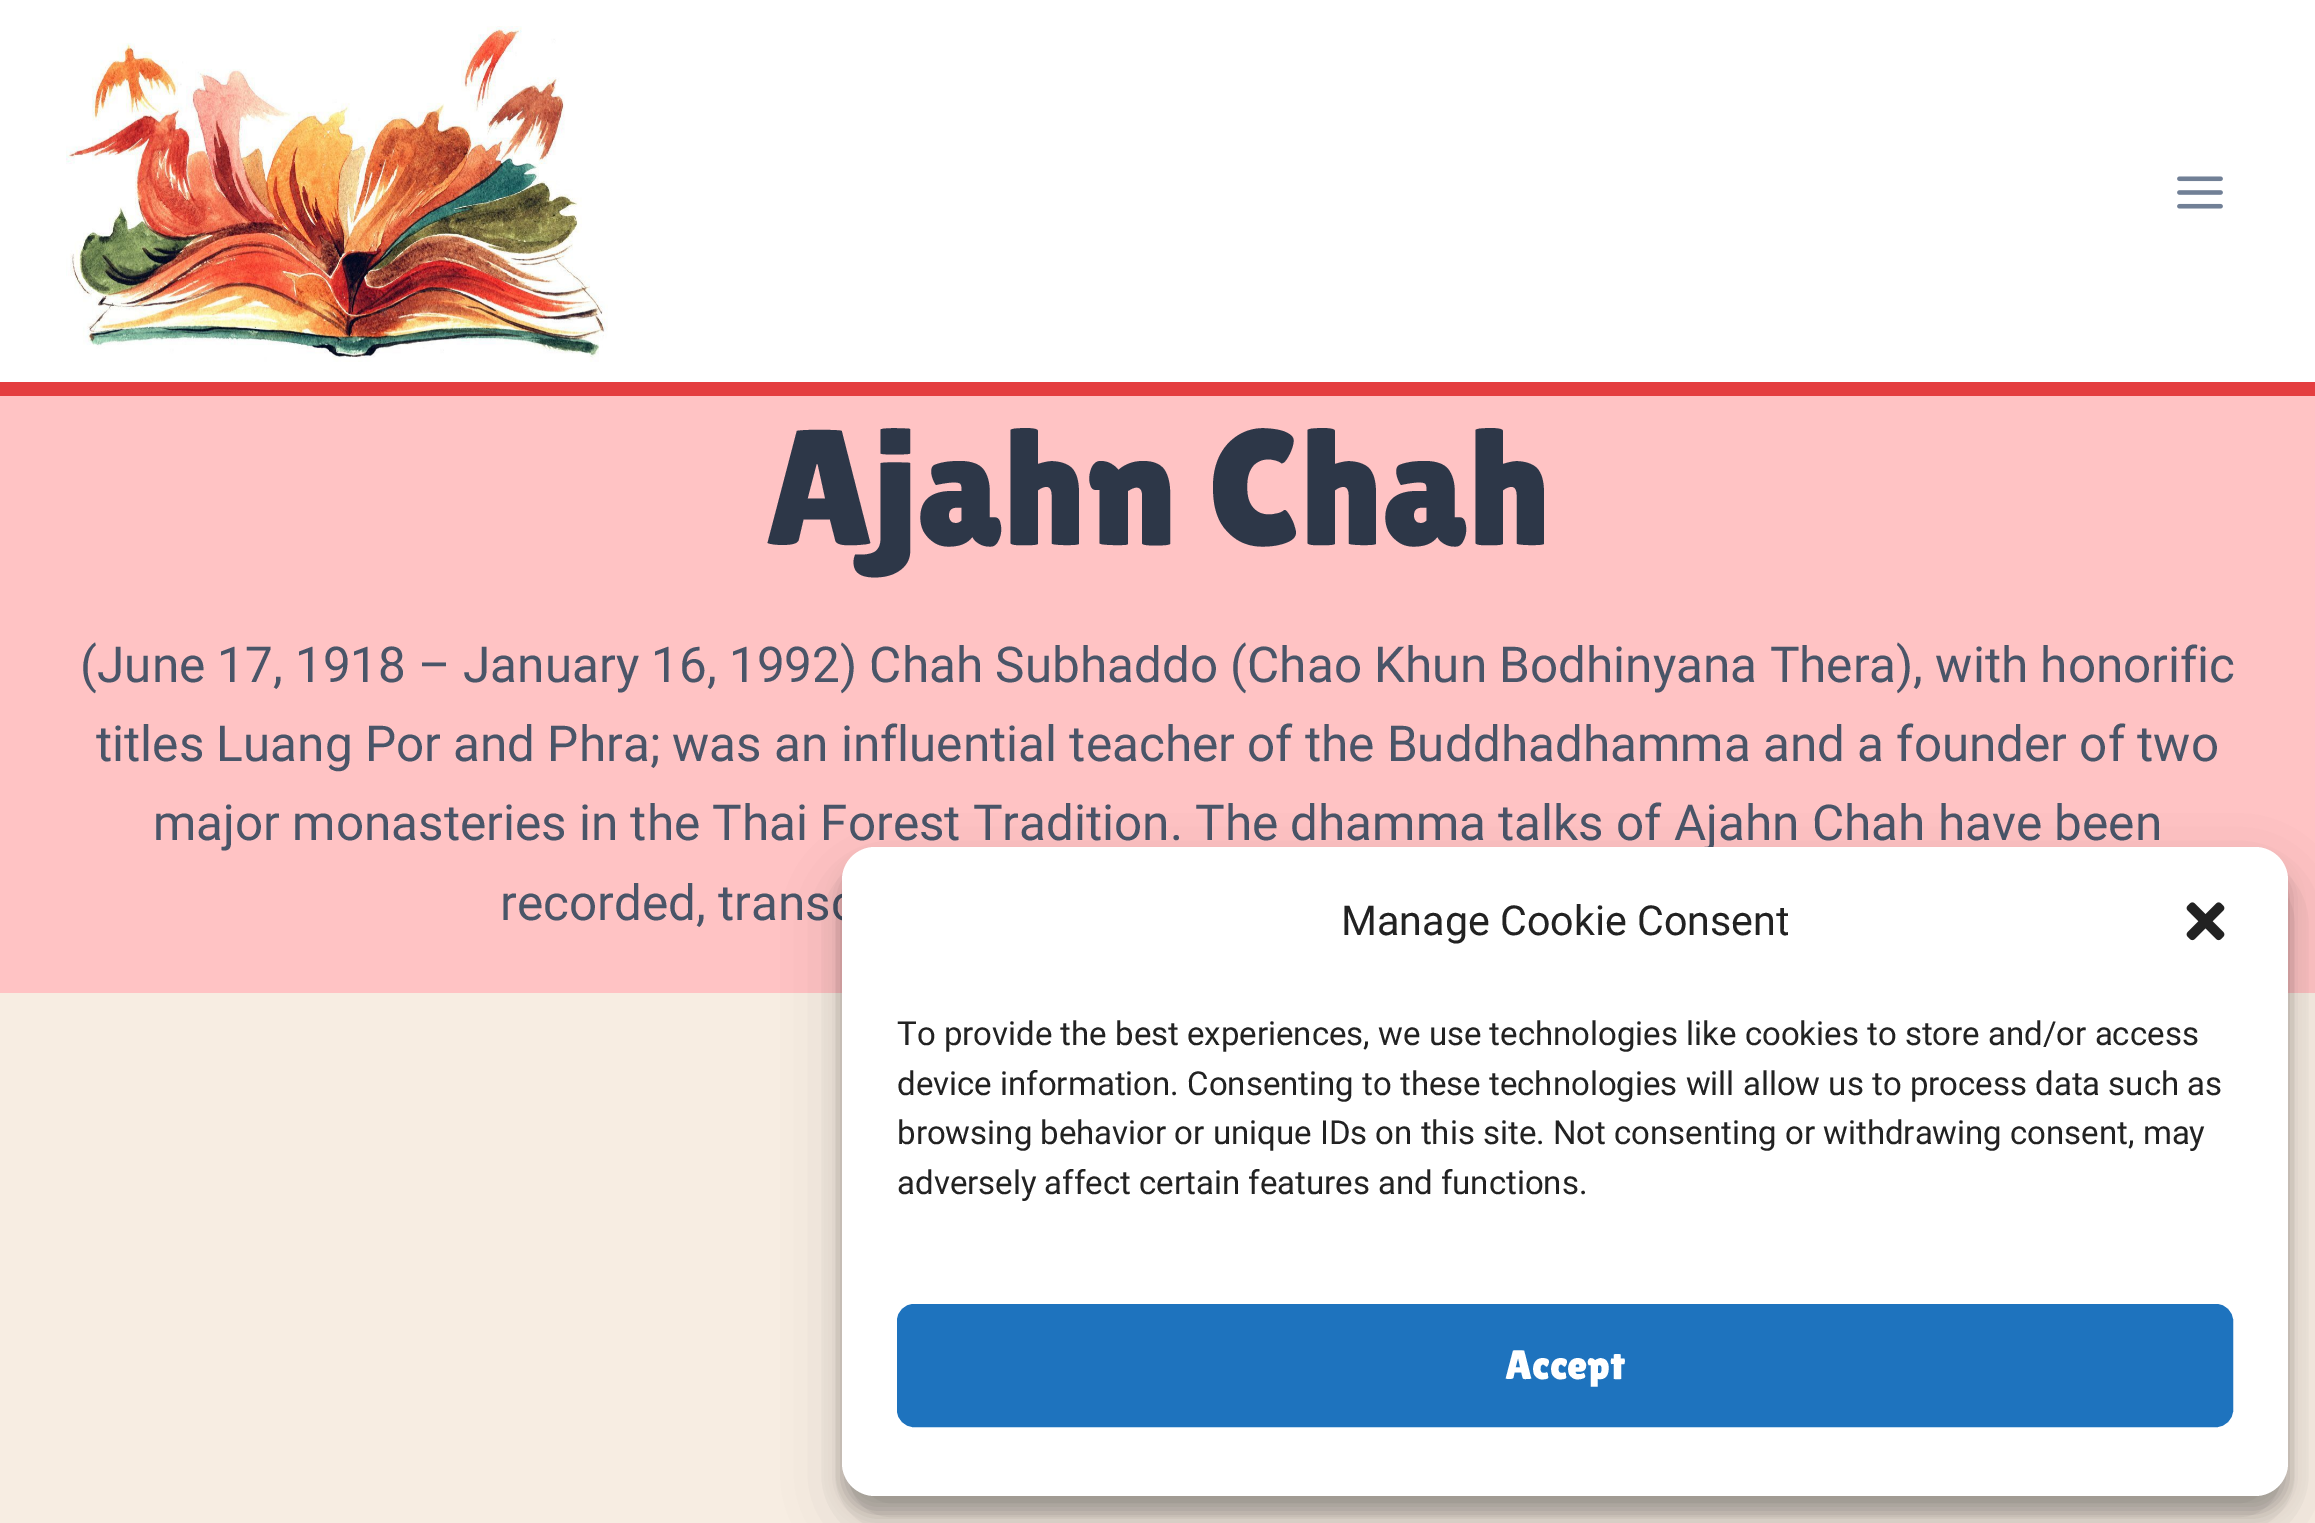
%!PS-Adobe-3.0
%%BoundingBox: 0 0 2315 1523
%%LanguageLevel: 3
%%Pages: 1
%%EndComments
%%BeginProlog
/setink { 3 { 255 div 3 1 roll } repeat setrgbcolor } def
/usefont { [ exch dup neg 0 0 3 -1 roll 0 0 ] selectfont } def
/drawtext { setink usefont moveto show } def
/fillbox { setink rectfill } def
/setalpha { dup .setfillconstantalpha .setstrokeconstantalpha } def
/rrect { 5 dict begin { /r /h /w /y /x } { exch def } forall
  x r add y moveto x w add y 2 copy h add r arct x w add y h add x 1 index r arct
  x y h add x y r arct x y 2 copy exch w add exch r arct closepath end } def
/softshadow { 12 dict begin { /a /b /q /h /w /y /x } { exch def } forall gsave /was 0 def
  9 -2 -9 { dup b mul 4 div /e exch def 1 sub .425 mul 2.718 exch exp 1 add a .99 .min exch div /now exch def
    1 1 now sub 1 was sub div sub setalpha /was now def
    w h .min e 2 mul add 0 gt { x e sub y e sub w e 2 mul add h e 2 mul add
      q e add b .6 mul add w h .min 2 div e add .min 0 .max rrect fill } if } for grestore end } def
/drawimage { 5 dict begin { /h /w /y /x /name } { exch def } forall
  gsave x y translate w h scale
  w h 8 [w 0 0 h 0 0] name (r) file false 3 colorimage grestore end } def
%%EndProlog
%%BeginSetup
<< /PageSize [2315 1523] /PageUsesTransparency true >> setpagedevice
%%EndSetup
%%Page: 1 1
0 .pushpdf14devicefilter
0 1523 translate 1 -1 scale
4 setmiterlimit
0 0 2315 1523 247 237 226 fillbox
0 0 2315 382 255 255 255 fillbox
0 382 2315 14 228 62 64 fillbox
(assets/img1.rgb) 66 26 542 336 drawimage
(assets/img2.rgb) 2177 176 46 33 drawimage
0 396 2315 597 255 195 196 fillbox
(Ajahn Chah) 765 545 /LilitaOne-Regular 165 45 55 72 drawtext
(\(June 17, 1918 – January 16, 1992\) Chah Subhaddo \(Chao Khun Bodhinyana Thera\), with honorific) 80 682 /Roboto-Regular 49.5 74 85 104 drawtext
(titles Luang Por and Phra; was an influential teacher of the Buddhadhamma and a founder of two) 96 761 /Roboto-Regular 49.5 74 85 104 drawtext
(major monasteries in the Thai Forest Tradition. The dhamma talks of Ajahn Chah have been) 153 840 /Roboto-Regular 49.5 74 85 104 drawtext
(recorded, transc) 500 920 /Roboto-Regular 49.5 74 85 104 drawtext
0 0 0 setink
842 864 1446 649 33 8 0.23 softshadow
842 875 1446 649 33 27.5 0.19 softshadow
255 255 255 setink
842 847 1446 649 33 rrect fill
(Manage Cookie Consent) 1341 935 /Roboto-Regular 41.25 34 34 34 drawtext
(assets/img3.rgb) 2186 902 39 39 drawimage
(To provide the best experiences, we use technologies like cookies to store and/or access) 897 1045 /Roboto-Regular 33 34 34 34 drawtext
(device information. Consenting to these technologies will allow us to process data such as) 897 1095 /Roboto-Regular 33 34 34 34 drawtext
(browsing behavior or unique IDs on this site. Not consenting or withdrawing consent, may) 897 1144 /Roboto-Regular 33 34 34 34 drawtext
(adversely affect certain features and functions.) 897 1194 /Roboto-Regular 33 34 34 34 drawtext
30 115 190 setink
898.5 1305.5 1333 120 15.5 rrect gsave fill grestore
3 setlinewidth
stroke
(Accept) 1505 1379 /LilitaOne-Regular 41.25 255 255 255 drawtext
.poppdf14devicefilter showpage
%%EOF
